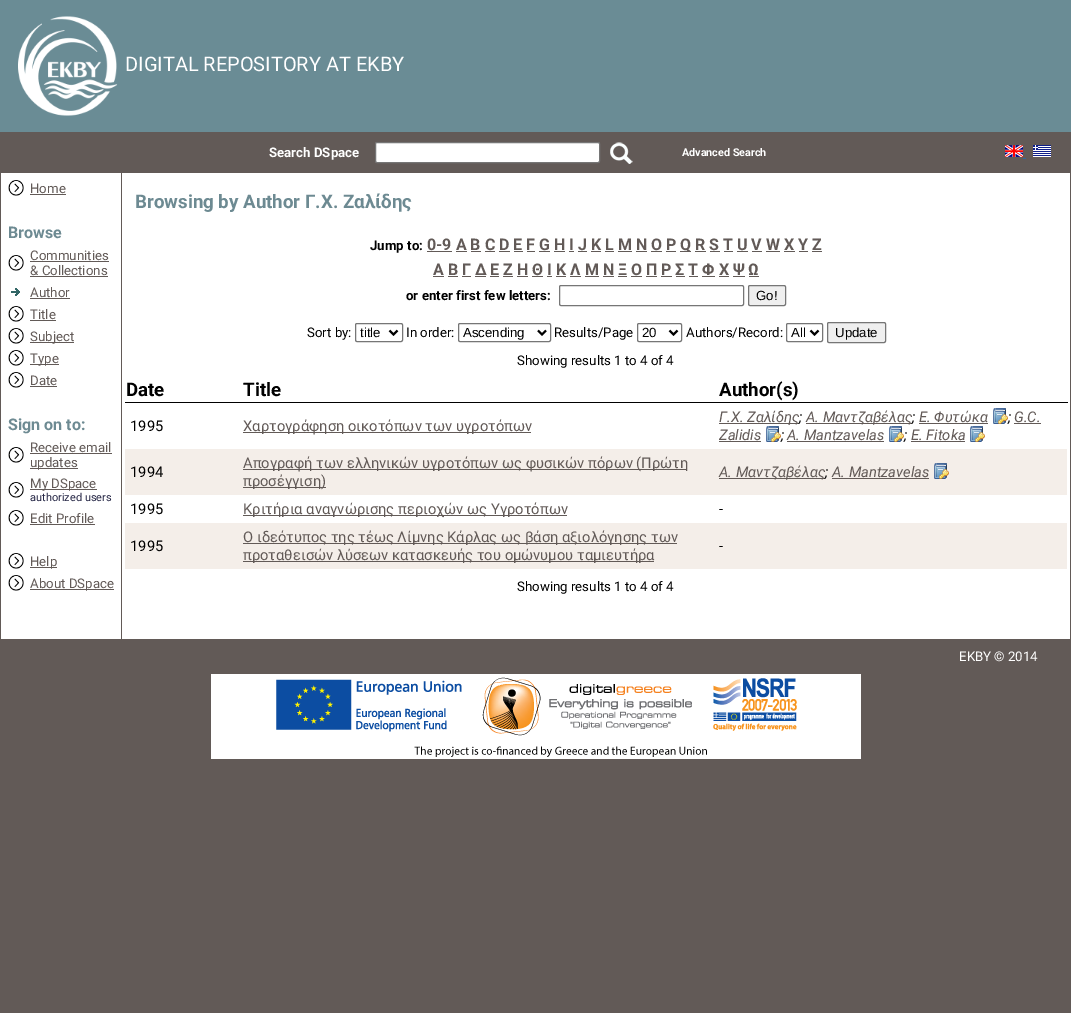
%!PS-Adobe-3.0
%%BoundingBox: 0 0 1071 1013
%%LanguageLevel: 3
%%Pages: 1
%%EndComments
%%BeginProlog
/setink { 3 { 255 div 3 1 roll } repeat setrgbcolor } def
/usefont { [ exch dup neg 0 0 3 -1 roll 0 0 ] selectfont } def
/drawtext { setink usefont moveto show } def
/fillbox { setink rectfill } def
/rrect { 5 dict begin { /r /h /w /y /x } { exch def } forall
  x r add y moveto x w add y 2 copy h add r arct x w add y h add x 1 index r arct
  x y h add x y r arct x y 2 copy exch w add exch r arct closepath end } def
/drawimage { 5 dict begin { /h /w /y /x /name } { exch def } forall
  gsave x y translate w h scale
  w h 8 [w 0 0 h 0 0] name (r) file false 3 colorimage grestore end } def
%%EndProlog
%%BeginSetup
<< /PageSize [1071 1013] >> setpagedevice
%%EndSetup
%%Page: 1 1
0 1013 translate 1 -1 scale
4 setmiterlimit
0 0 1071 1013 98 90 87 fillbox
0 0 1071 132 106 140 149 fillbox
(assets/img1.rgb) 18 16 100 100 drawimage
(DIGITAL REPOSITORY AT EKBY) 125 71 /Roboto-Regular 20 255 255 255 drawtext
(Search DSpace) 269 157 /Roboto-Bold 13.25 255 255 255 drawtext
375.5 142.5 224 20 1.5 rrect gsave fill grestore
118 118 118 setink
stroke
(assets/img2.rgb) 610 142 23 22 drawimage
(Advanced Search) 682 156 /Roboto-Bold 10.75 255 255 255 drawtext
(assets/img3.rgb) 1005 145 18 12 drawimage
(assets/img4.rgb) 1033 145 18 12 drawimage
1023 158 3 1 51 102 153 fillbox
1 173 120 466 255 255 255 fillbox
(assets/img5.rgb) 8 180 16 16 drawimage
(Home) 30 193 /Roboto-Regular 13.25 98 90 87 drawtext
30 194 36 1 98 90 87 fillbox
(Browse) 8 238 /Roboto-Bold 16 109 138 146 drawtext
(assets/img5.rgb) 8 255 16 16 drawimage
(Communities) 30 260 /Roboto-Regular 13.25 98 90 87 drawtext
30 261 79 1 98 90 87 fillbox
(& Collections) 30 275 /Roboto-Regular 13.25 98 90 87 drawtext
30 276 78 1 98 90 87 fillbox
(assets/img6.rgb) 11 288 9 8 drawimage
(Author) 30 297 /Roboto-Regular 13.25 98 90 87 drawtext
30 298 40 1 98 90 87 fillbox
(assets/img5.rgb) 8 306 16 16 drawimage
(Title) 30 319 /Roboto-Regular 13.25 98 90 87 drawtext
30 320 26 1 98 90 87 fillbox
(assets/img5.rgb) 8 328 16 16 drawimage
30 342 44 1 98 90 87 fillbox
(Subject) 30 341 /Roboto-Regular 13.25 98 90 87 drawtext
(assets/img5.rgb) 8 350 16 16 drawimage
30 364 29 1 98 90 87 fillbox
(Type) 30 363 /Roboto-Regular 13.25 98 90 87 drawtext
(assets/img5.rgb) 8 372 16 16 drawimage
(Date) 30 385 /Roboto-Regular 13.25 98 90 87 drawtext
30 386 27 1 98 90 87 fillbox
(Sign on to:) 8 430 /Roboto-Bold 16 109 138 146 drawtext
(assets/img5.rgb) 8 447 16 16 drawimage
(Receive email) 30 452 /Roboto-Regular 13.25 98 90 87 drawtext
30 453 82 1 98 90 87 fillbox
30 468 48 1 98 90 87 fillbox
(updates) 30 467 /Roboto-Regular 13.25 98 90 87 drawtext
(assets/img5.rgb) 8 482 16 16 drawimage
30 489 67 1 98 90 87 fillbox
(My DSpace) 30 488 /Roboto-Regular 13.25 98 90 87 drawtext
(authorized users) 30 501 /Roboto-Regular 11 37 38 69 drawtext
(assets/img5.rgb) 8 510 16 16 drawimage
(Edit Profile) 30 523 /Roboto-Regular 13.25 98 90 87 drawtext
30 524 65 1 98 90 87 fillbox
(assets/img5.rgb) 8 553 16 16 drawimage
30 567 27 1 98 90 87 fillbox
(Help) 30 566 /Roboto-Regular 13.25 98 90 87 drawtext
(assets/img5.rgb) 8 575 16 16 drawimage
30 589 84 1 98 90 87 fillbox
(About DSpace) 30 588 /Roboto-Regular 13.25 98 90 87 drawtext
122 173 948 466 255 255 255 fillbox
(Browsing by Author Γ.Χ. Ζαλίδης) 135 208 /Roboto-Bold 18.7 109 138 146 drawtext
(Jump to:) 370 250 /Roboto-Bold 13.25 0 0 0 drawtext
(0-9 A B C D E F G H I J K L M N O P) 427 250 /Roboto-Bold 16 98 90 87 drawtext
427 251 25 1 98 90 87 fillbox
680 251 11 1 98 90 87 fillbox
(Q R S T U V W X Y Z) 680 250 /Roboto-Bold 16 98 90 87 drawtext
456 251 11 1 98 90 87 fillbox
471 251 10 1 98 90 87 fillbox
485 251 10 1 98 90 87 fillbox
499 251 11 1 98 90 87 fillbox
514 251 9 1 98 90 87 fillbox
527 251 8 1 98 90 87 fillbox
539 251 11 1 98 90 87 fillbox
554 251 11 1 98 90 87 fillbox
569 251 5 1 98 90 87 fillbox
578 251 9 1 98 90 87 fillbox
591 251 10 1 98 90 87 fillbox
605 251 9 1 98 90 87 fillbox
618 251 14 1 98 90 87 fillbox
636 251 11 1 98 90 87 fillbox
651 251 11 1 98 90 87 fillbox
666 251 10 1 98 90 87 fillbox
695 251 11 1 98 90 87 fillbox
710 251 10 1 98 90 87 fillbox
724 251 9 1 98 90 87 fillbox
737 251 11 1 98 90 87 fillbox
752 251 10 1 98 90 87 fillbox
766 251 14 1 98 90 87 fillbox
784 251 11 1 98 90 87 fillbox
799 251 9 1 98 90 87 fillbox
812 251 10 1 98 90 87 fillbox
(Α Β Γ Δ Ε Ζ Η Θ Ι Κ Λ Μ Ν Ξ Ο Π Ρ Σ Τ Φ Χ Ψ Ω) 433 275 /Roboto-Bold 16 98 90 87 drawtext
433 276 11 1 98 90 87 fillbox
448 276 10 1 98 90 87 fillbox
462 276 9 1 98 90 87 fillbox
475 276 11 1 98 90 87 fillbox
490 276 9 1 98 90 87 fillbox
503 276 10 1 98 90 87 fillbox
517 276 11 1 98 90 87 fillbox
532 276 11 1 98 90 87 fillbox
547 276 5 1 98 90 87 fillbox
556 276 10 1 98 90 87 fillbox
570 276 11 1 98 90 87 fillbox
585 276 14 1 98 90 87 fillbox
603 276 11 1 98 90 87 fillbox
618 276 9 1 98 90 87 fillbox
631 276 11 1 98 90 87 fillbox
646 276 11 1 98 90 87 fillbox
661 276 11 1 98 90 87 fillbox
676 276 9 1 98 90 87 fillbox
689 276 9 1 98 90 87 fillbox
702 276 13 1 98 90 87 fillbox
719 276 10 1 98 90 87 fillbox
733 276 12 1 98 90 87 fillbox
749 276 10 1 98 90 87 fillbox
(or enter first few letters:) 406 300 /Roboto-Bold 13.25 0 0 0 drawtext
118 118 118 setink
559.5 285.5 184 20 1.5 rrect stroke
239 239 239 setink
748.5 285.5 37 20 1.5 rrect gsave fill grestore
118 118 118 setink
stroke
(Go!) 756 300 /LiberationSans-Regular 13.25 0 0 0 drawtext
(Sort by:) 307 337 /Roboto-Regular 13.25 0 0 0 drawtext
118 118 118 setink
355.5 323.5 47 18 1.5 rrect stroke
0 0 0 setink
2 setlinewidth
389.5 330.5 moveto 393.5 334.5 lineto 397.5 330.5 lineto stroke
(title) 360 337 /LiberationSans-Regular 13.25 0 0 0 drawtext
(In order:) 406 337 /Roboto-Regular 13.25 0 0 0 drawtext
118 118 118 setink
1 setlinewidth
458.5 323.5 92 18 1.5 rrect stroke
0 0 0 setink
2 setlinewidth
538 330.5 moveto 542 334.5 lineto 546 330.5 lineto stroke
(Ascending) 463 337 /LiberationSans-Regular 13.25 0 0 0 drawtext
(Results/Page) 554 337 /Roboto-Regular 13.25 0 0 0 drawtext
118 118 118 setink
1 setlinewidth
637.5 323.5 44 18 1.5 rrect stroke
0 0 0 setink
2 setlinewidth
669.5 330.5 moveto 673.5 334.5 lineto 677.5 330.5 lineto stroke
(20) 642 337 /LiberationSans-Regular 13.25 0 0 0 drawtext
(Authors/Record:) 686 337 /Roboto-Regular 13.25 0 0 0 drawtext
118 118 118 setink
1 setlinewidth
786.5 323.5 36 18 1.5 rrect stroke
0 0 0 setink
2 setlinewidth
810.5 330.5 moveto 814.5 334.5 lineto 818.5 330.5 lineto stroke
(All) 791 337 /LiberationSans-Regular 13.25 0 0 0 drawtext
239 239 239 setink
827.5 322.5 58 20 1.5 rrect gsave fill grestore
118 118 118 setink
1 setlinewidth
stroke
(Update) 835 337 /LiberationSans-Regular 13.25 0 0 0 drawtext
(Showing results 1 to 4 of 4) 517 365 /Roboto-Regular 13.25 0 0 0 drawtext
(Date) 126 396 /Roboto-Bold 18.7 0 0 0 drawtext
(Title) 243 396 /Roboto-Bold 18.7 0 0 0 drawtext
125 402 943 1 0 0 0 fillbox
(Author\(s\)) 719 396 /Roboto-Bold 18.7 0 0 0 drawtext
(1995) 130 431 /Roboto-Regular 14.7 0 0 0 drawtext
243 432 288 1 98 90 87 fillbox
(Xαρτογράφηση οικοτόπων των υγροτόπων) 243 431 /Roboto-Regular 14.7 98 90 87 drawtext
719 423 80 1 98 90 87 fillbox
(Γ.Χ. Ζαλίδης) 719 422 /Roboto-Italic 14.7 98 90 87 drawtext
(;) 799 422 /Roboto-Italic 14.7 0 0 0 drawtext
806 423 106 1 98 90 87 fillbox
(Α. Μαντζαβέλας) 806 422 /Roboto-Italic 14.7 98 90 87 drawtext
(;) 912 422 /Roboto-Italic 14.7 0 0 0 drawtext
919 423 69 1 98 90 87 fillbox
(Ε. Φυτώκα) 919 422 /Roboto-Italic 14.7 98 90 87 drawtext
(assets/img7.rgb) 993 408 15 16 drawimage
(;) 1008 422 /Roboto-Italic 14.7 0 0 0 drawtext
1014 423 27 1 98 90 87 fillbox
(G.C.) 1014 422 /Roboto-Italic 14.7 98 90 87 drawtext
(Zalidis) 719 440 /Roboto-Italic 14.7 98 90 87 drawtext
719 441 42 1 98 90 87 fillbox
(assets/img7.rgb) 766 426 15 16 drawimage
(;) 781 440 /Roboto-Italic 14.7 0 0 0 drawtext
787 441 97 1 98 90 87 fillbox
(A. Mantzavelas) 787 440 /Roboto-Italic 14.7 98 90 87 drawtext
(assets/img7.rgb) 889 426 15 16 drawimage
(;) 904 440 /Roboto-Italic 14.7 0 0 0 drawtext
911 441 54 1 98 90 87 fillbox
(E. Fitoka) 911 440 /Roboto-Italic 14.7 98 90 87 drawtext
(assets/img7.rgb) 970 426 15 16 drawimage
125 449 942 46 244 238 233 fillbox
(1994) 130 477 /Roboto-Regular 14.7 0 0 0 drawtext
243 469 444 1 98 90 87 fillbox
(Απογραφή των ελληνικών υγροτόπων ως φυσικών πόρων \(Πρώτη) 243 468 /Roboto-Regular 14.7 98 90 87 drawtext
243 487 83 1 98 90 87 fillbox
(προσέγγιση\)) 243 486 /Roboto-Regular 14.7 98 90 87 drawtext
719 478 106 1 98 90 87 fillbox
(Α. Μαντζαβέλας) 719 477 /Roboto-Italic 14.7 98 90 87 drawtext
(;) 825 477 /Roboto-Italic 14.7 0 0 0 drawtext
832 478 97 1 98 90 87 fillbox
(A. Mantzavelas) 832 477 /Roboto-Italic 14.7 98 90 87 drawtext
(assets/img8.rgb) 934 463 15 16 drawimage
(1995) 130 514 /Roboto-Regular 14.7 0 0 0 drawtext
243 515 324 1 98 90 87 fillbox
(Κριτήρια αναγνώρισης περιοχών ως Υγροτόπων) 243 514 /Roboto-Regular 14.7 98 90 87 drawtext
(-) 719 514 /Roboto-Regular 14.7 0 0 0 drawtext
125 523 942 46 244 238 233 fillbox
(1995) 130 551 /Roboto-Regular 14.7 0 0 0 drawtext
243 543 434 1 98 90 87 fillbox
(Ο ιδεότυπος της τέως Λίμνης Κάρλας ως βάση αξιολόγησης των) 243 542 /Roboto-Regular 14.7 98 90 87 drawtext
243 561 411 1 98 90 87 fillbox
(προταθεισών λύσεων κατασκευής του ομώνυμου ταμιευτήρα) 243 560 /Roboto-Regular 14.7 98 90 87 drawtext
(-) 719 551 /Roboto-Regular 14.7 0 0 0 drawtext
(Showing results 1 to 4 of 4) 517 591 /Roboto-Regular 13.25 0 0 0 drawtext
(EKBY © 2014) 959 661 /Roboto-Regular 13.25 255 255 255 drawtext
211 674 650 85 255 255 255 fillbox
(assets/img9.rgb) 276 679 186 53 drawimage
(assets/img10.rgb) 482 677 210 59 drawimage
(assets/img11.rgb) 713 678 84 53 drawimage
(assets/img12.rgb) 414 746 293 11 drawimage
showpage
%%EOF
